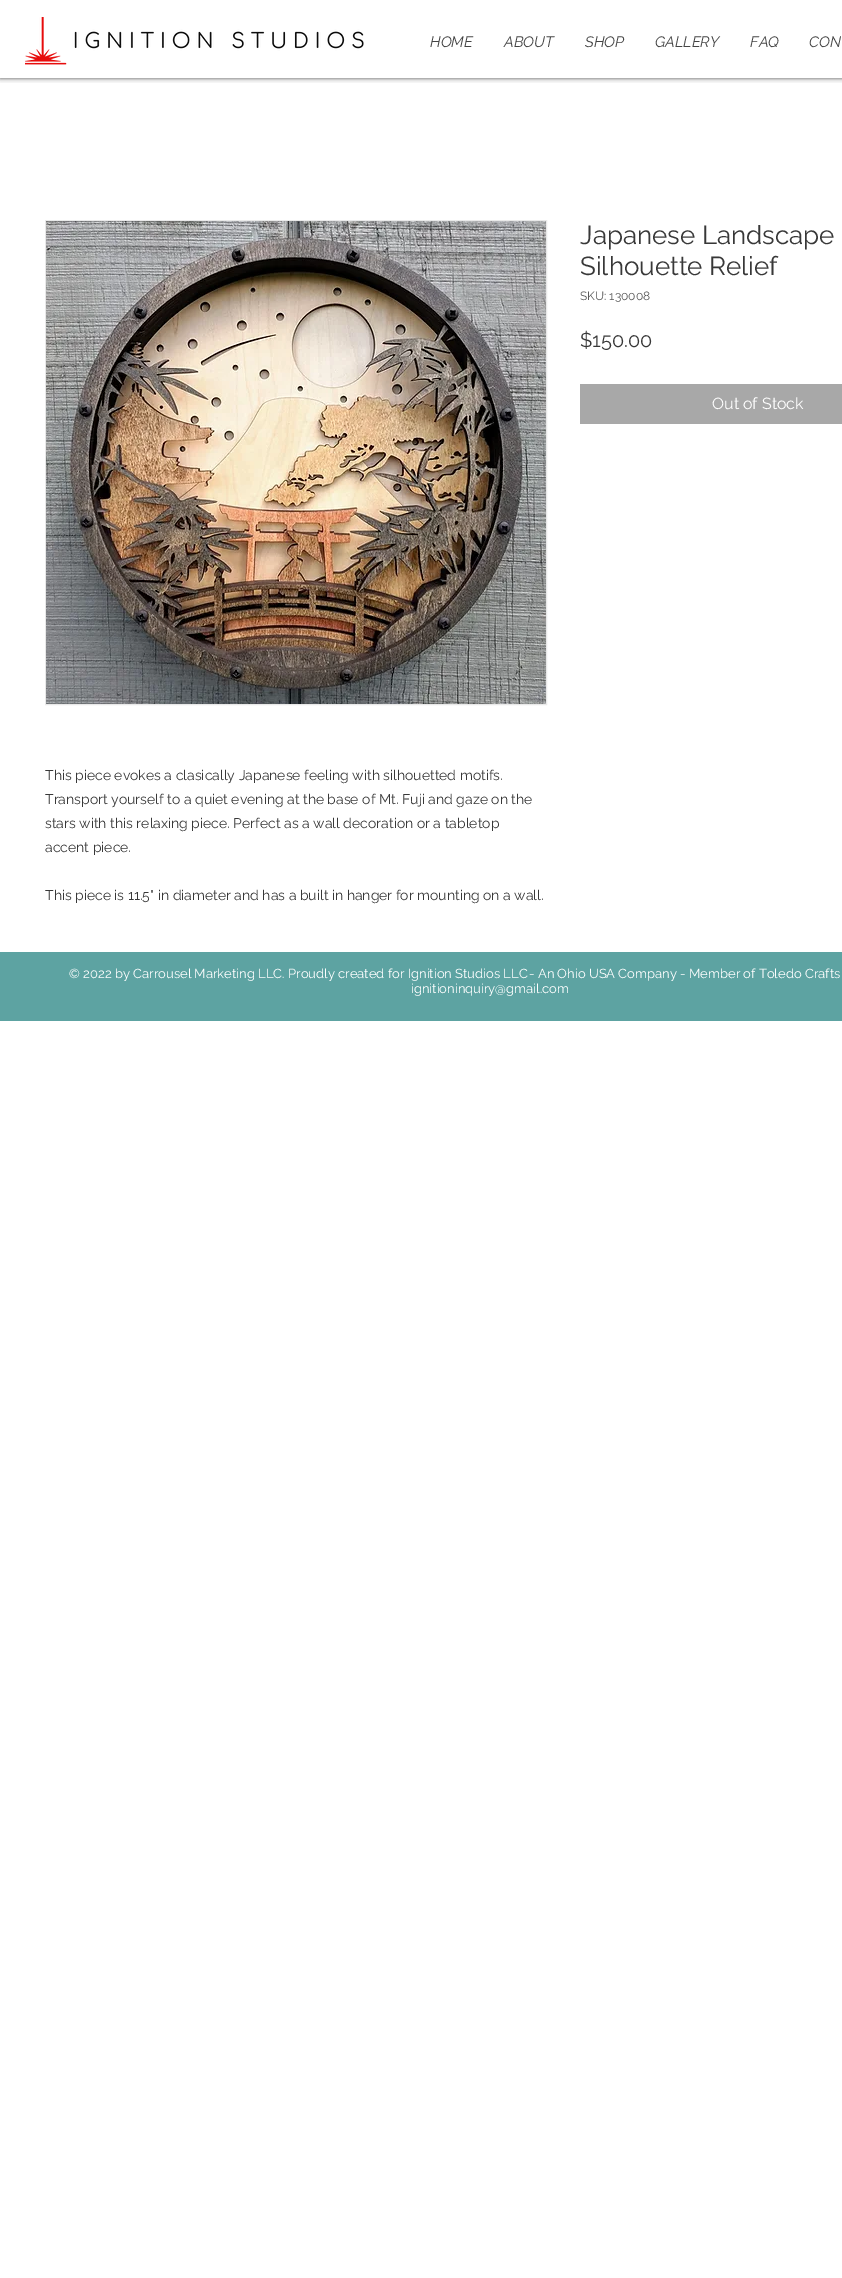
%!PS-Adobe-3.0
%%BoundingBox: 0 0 842 2278
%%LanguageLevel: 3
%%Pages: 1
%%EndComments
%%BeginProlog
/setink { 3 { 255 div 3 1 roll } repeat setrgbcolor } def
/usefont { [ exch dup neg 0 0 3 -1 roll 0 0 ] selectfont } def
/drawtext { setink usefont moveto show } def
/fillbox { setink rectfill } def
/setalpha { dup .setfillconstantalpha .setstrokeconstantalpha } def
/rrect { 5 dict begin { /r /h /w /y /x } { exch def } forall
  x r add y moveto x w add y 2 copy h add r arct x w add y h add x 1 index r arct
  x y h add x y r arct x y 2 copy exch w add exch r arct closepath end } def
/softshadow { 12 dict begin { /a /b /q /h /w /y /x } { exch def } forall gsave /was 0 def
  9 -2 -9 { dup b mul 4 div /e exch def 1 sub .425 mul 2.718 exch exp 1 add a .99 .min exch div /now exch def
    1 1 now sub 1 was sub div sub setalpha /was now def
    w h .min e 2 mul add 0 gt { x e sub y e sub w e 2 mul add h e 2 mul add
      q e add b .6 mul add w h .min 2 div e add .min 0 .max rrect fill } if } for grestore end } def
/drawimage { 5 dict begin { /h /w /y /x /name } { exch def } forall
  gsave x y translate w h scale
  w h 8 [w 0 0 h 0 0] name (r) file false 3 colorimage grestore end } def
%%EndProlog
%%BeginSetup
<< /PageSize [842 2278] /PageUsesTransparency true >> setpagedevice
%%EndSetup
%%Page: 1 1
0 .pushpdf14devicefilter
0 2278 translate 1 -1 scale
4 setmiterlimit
0 0 842 2278 255 255 255 fillbox
gsave
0 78 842 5 rectclip
0 0 0 setink
0 0 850 78 0 2.5 0.7 softshadow
grestore
(assets/img1.rgb) 25 17 339 48 drawimage
(HOME) 430 47 /Raleway-Italic 15 68 68 68 drawtext
(ABOUT) 504 47 /Raleway-Italic 15 68 68 68 drawtext
(SHOP) 585 47 /Raleway-Italic 15 68 68 68 drawtext
(GALLERY) 655 47 /Raleway-Italic 15 68 68 68 drawtext
(FAQ) 750 47 /Raleway-Italic 15 68 68 68 drawtext
(CON) 809 47 /Raleway-Italic 15 68 68 68 drawtext
(Japanese Landscape) 580 244 /Raleway-Regular 26 56 56 56 drawtext
(Silhouette Relief) 580 275 /Raleway-Regular 26 56 56 56 drawtext
(SKU: 130008) 580 300 /Raleway-Regular 12 89 89 89 drawtext
($150.00) 580 347 /Raleway-Regular 20 56 56 56 drawtext
580 384 262 40 168 168 168 fillbox
(Out of Stock) 712 409 /Raleway-Regular 16 255 255 255 drawtext
233 233 233 setink
45.5 220.5 501 484 rectstroke
(assets/img2.rgb) 46 221 500 483 drawimage
(This piece evokes a clasically Japanese feeling with silhouetted motifs.) 45 780 /Raleway-Regular 14 56 56 56 drawtext
(Transport yourself to a quiet evening at the base of Mt. Fuji and gaze on the) 45 804 /Raleway-Regular 14 56 56 56 drawtext
(stars with this relaxing piece. Perfect as a wall decoration or a tabletop) 45 828 /Raleway-Regular 14 56 56 56 drawtext
(accent piece.) 45 852 /Raleway-Regular 14 56 56 56 drawtext
(This piece is 11.5" in diameter and has a built in hanger for mounting on a wall.) 45 900 /Raleway-Regular 14 56 56 56 drawtext
0 952 842 69 93 163 162 fillbox
(© 2022 by Carrousel Marketing LLC. Proudly created for Ignition Studios LLC) 69 978 /Raleway-Regular 13 255 255 255 drawtext
(- An Ohio USA Company - Member of Toledo Crafts) 529 978 /Raleway-Regular 13 255 255 255 drawtext
(ignitioninquiry@gmail.com) 411 993 /Raleway-Regular 13 255 255 255 drawtext
.poppdf14devicefilter showpage
%%EOF
